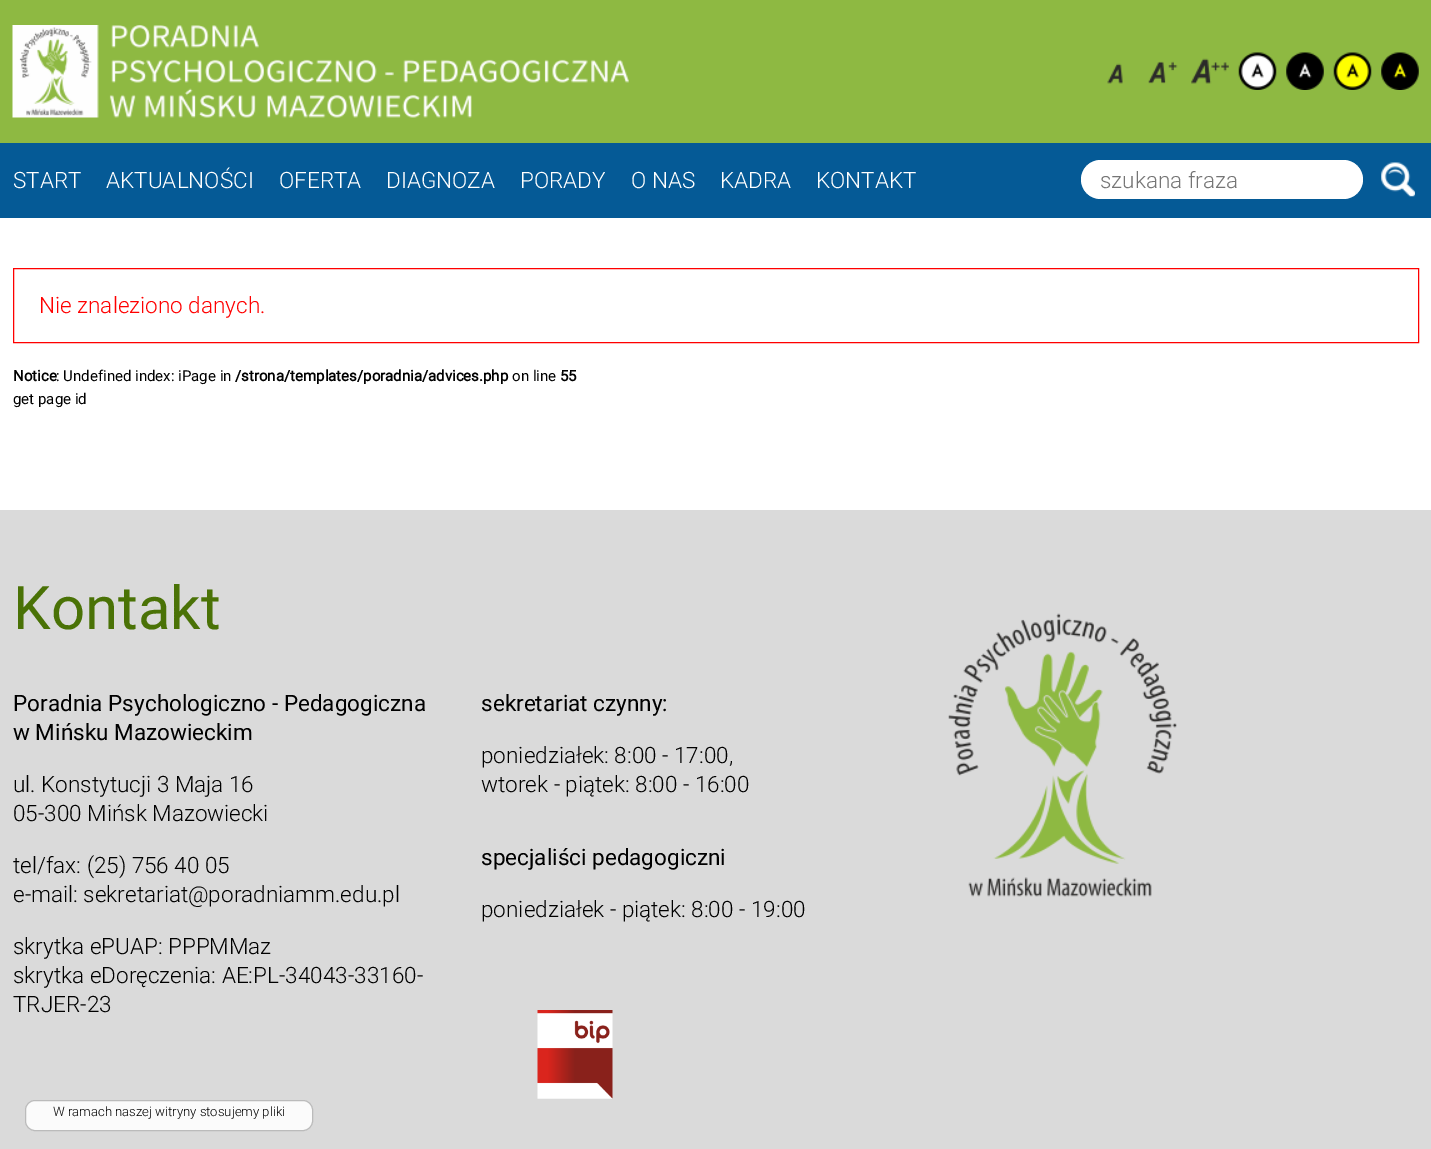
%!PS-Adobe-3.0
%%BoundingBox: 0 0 1431 1149
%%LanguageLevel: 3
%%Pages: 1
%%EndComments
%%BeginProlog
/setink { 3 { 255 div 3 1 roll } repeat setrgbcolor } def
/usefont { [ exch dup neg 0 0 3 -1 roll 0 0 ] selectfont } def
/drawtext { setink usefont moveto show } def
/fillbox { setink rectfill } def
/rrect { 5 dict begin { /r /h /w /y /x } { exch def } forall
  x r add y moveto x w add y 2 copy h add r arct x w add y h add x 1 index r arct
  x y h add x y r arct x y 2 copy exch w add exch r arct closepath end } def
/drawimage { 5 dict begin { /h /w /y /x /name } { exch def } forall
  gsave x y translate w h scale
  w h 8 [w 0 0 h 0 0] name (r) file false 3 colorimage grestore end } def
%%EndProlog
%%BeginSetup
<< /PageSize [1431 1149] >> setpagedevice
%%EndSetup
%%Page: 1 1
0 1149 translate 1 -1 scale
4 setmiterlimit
0 0 1431 1149 255 255 255 fillbox
0 0 1431 143 142 185 66 fillbox
(assets/img1.rgb) 12 25 617 93 drawimage
(assets/img2.rgb) 1107 63 16 21 drawimage
(assets/img3.rgb) 1148 61 30 23 drawimage
(assets/img4.rgb) 1191 58 38 26 drawimage
(assets/img5.rgb) 1238 52 39 38 drawimage
(assets/img6.rgb) 1286 52 38 38 drawimage
(assets/img7.rgb) 1333 52 39 38 drawimage
(assets/img8.rgb) 1381 52 38 38 drawimage
0 143 1431 75 5 90 150 fillbox
(START) 13 188 /Roboto-Light 22.5 255 255 255 drawtext
(AKTUALNOŚCI) 106 188 /Roboto-Light 22.5 255 255 255 drawtext
(OFERTA) 279 188 /Roboto-Light 22.5 255 255 255 drawtext
(DIAGNOZA) 386 188 /Roboto-Light 22.5 255 255 255 drawtext
(PORADY) 520 188 /Roboto-Light 22.5 255 255 255 drawtext
(O NAS) 631 188 /Roboto-Light 22.5 255 255 255 drawtext
(KADRA) 720 188 /Roboto-Light 22.5 255 255 255 drawtext
(KONTAKT) 816 188 /Roboto-Light 22.5 255 255 255 drawtext
1081 160 282 39 19.5 rrect fill
(szukana fraza) 1100 188 /Roboto-Light 22.5 117 117 117 drawtext
(assets/img9.rgb) 1381 162 34 35 drawimage
255 0 0 setink
13.5 268.5 1405 74 rectstroke
(Nie znaleziono danych.) 39 313 /Roboto-Light 22.5 255 0 0 drawtext
(Notice) 13 381 /Roboto-Bold 15 0 0 0 drawtext
(: Undefined index: iPage in) 56 381 /Roboto-Regular 15 0 0 0 drawtext
(/strona/templates/poradnia/advices.php) 235 381 /Roboto-Bold 15 0 0 0 drawtext
(on line) 512 381 /Roboto-Regular 15 0 0 0 drawtext
(55) 560 381 /Roboto-Bold 15 0 0 0 drawtext
(get page id) 13 404 /Roboto-Regular 15 0 0 0 drawtext
0 510 1431 639 218 218 218 fillbox
(Kontakt) 13 629 /Roboto-Regular 60 74 114 6 drawtext
(Poradnia Psychologiczno - Pedagogiczna) 13 711 /Roboto-Regular 22.5 0 0 0 drawtext
(w Mińsku Mazowieckim) 13 740 /Roboto-Regular 22.5 0 0 0 drawtext
(ul. Konstytucji 3 Maja 16) 13 792 /Roboto-Light 22.5 0 0 0 drawtext
(05-300 Mińsk Mazowiecki) 13 821 /Roboto-Light 22.5 0 0 0 drawtext
(tel/fax: \(25\) 756 40 05) 13 873 /Roboto-Light 22.5 0 0 0 drawtext
(e-mail: sekretariat@poradniamm.edu.pl) 13 902 /Roboto-Light 22.5 0 0 0 drawtext
(skrytka ePUAP: PPPMMaz) 13 954 /Roboto-Light 22.5 0 0 0 drawtext
(skrytka eDoręczenia: AE:PL-34043-33160-) 13 983 /Roboto-Light 22.5 0 0 0 drawtext
(TRJER-23) 13 1012 /Roboto-Light 22.5 0 0 0 drawtext
(assets/img10.rgb) 537 1010 76 89 drawimage
(sekretariat czynny:) 481 711 /Roboto-Regular 22.5 0 0 0 drawtext
(poniedziałek: 8:00 - 17:00,) 481 763 /Roboto-Light 22.5 0 0 0 drawtext
(wtorek - piątek: 8:00 - 16:00) 481 792 /Roboto-Light 22.5 0 0 0 drawtext
(specjaliści pedagogiczni) 481 865 /Roboto-Regular 22.5 0 0 0 drawtext
(poniedziałek - piątek: 8:00 - 19:00) 481 917 /Roboto-Light 22.5 0 0 0 drawtext
(assets/img11.rgb) 948 613 229 284 drawimage
251 251 251 setink
25.5 1100.5 287 30 9.5 rrect gsave fill grestore
187 187 187 setink
stroke
(W ramach naszej witryny stosujemy pliki) 53 1116 /Roboto-Light 13.1 0 0 0 drawtext
showpage
%%EOF
